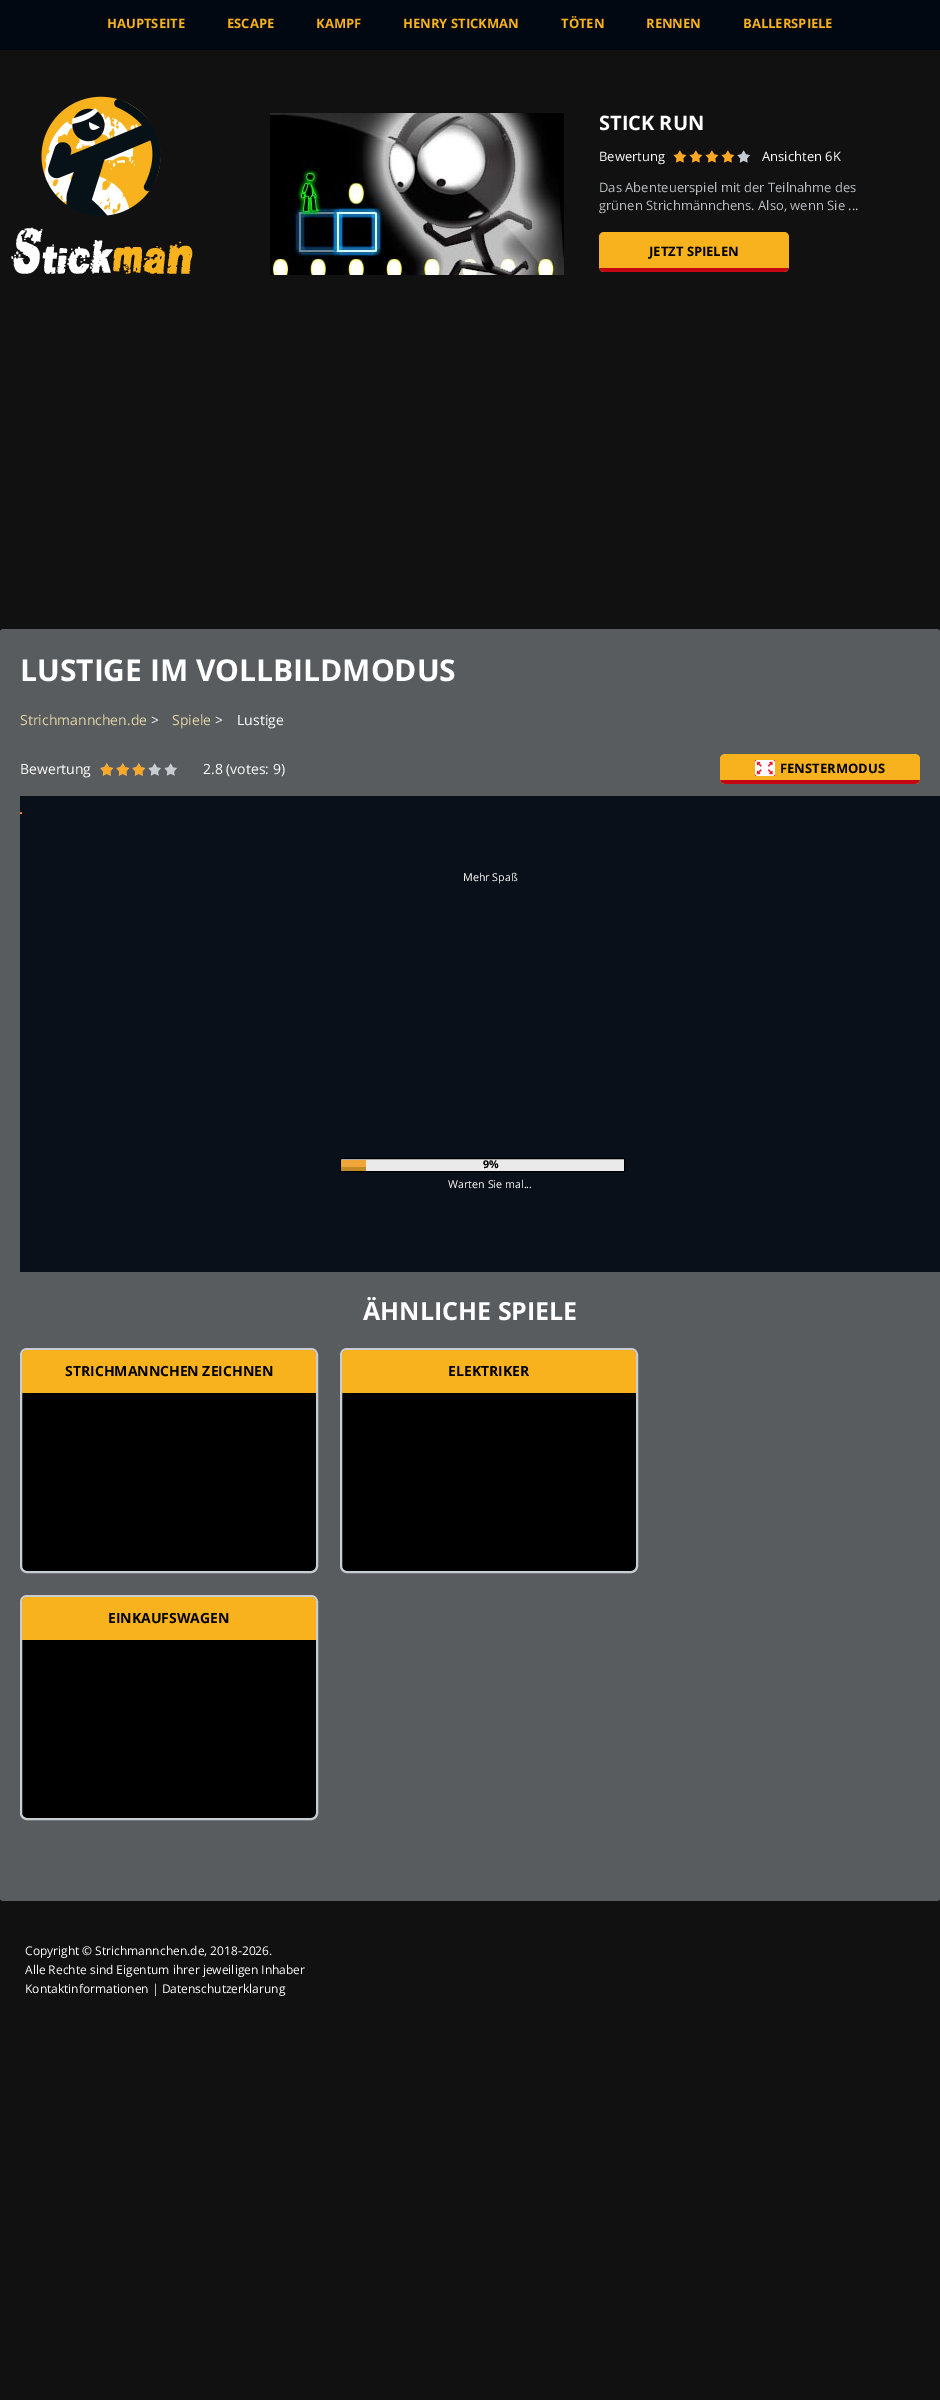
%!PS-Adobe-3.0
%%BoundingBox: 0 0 940 2400
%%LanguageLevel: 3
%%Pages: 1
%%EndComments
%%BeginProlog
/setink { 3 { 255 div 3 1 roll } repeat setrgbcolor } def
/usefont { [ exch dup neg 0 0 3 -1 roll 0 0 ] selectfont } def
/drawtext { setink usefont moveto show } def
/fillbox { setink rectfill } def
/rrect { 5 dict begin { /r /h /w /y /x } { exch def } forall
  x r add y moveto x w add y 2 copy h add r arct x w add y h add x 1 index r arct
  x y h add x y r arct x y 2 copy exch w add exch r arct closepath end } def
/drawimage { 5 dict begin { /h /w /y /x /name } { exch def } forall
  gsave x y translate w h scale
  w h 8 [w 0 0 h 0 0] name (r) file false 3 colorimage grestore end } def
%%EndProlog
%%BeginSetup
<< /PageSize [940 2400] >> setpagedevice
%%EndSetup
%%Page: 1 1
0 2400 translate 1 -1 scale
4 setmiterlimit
0 0 940 2400 17 17 17 fillbox
0 0 940 50 2 8 17 fillbox
(HAUPTSEITE) 107 28 /OpenSans-Bold 13 247 178 30 drawtext
(ESCAPE) 227 28 /OpenSans-Bold 13 247 178 30 drawtext
(KAMPF) 316 28 /OpenSans-Bold 13 247 178 30 drawtext
(HENRY STICKMAN) 403 28 /OpenSans-Bold 13 247 178 30 drawtext
(TÖTEN) 561 28 /OpenSans-Bold 13 247 178 30 drawtext
(RENNEN) 646 28 /OpenSans-Bold 13 247 178 30 drawtext
(BALLERSPIELE) 743 28 /OpenSans-Bold 13 247 178 30 drawtext
(assets/img1.rgb) 11 96 182 178 drawimage
(assets/img2.rgb) 270 113 294 162 drawimage
(STICK RUN) 599 130 /OpenSans-Bold 20 255 255 255 drawtext
(Bewertung) 599 161 /OpenSans-Regular 13 255 255 255 drawtext
(assets/img3.rgb) 737 150 13 13 drawimage
(assets/img4.rgb) 673 150 62 13 drawimage
(Ansichten 6K) 762 161 /OpenSans-Regular 13 255 255 255 drawtext
(Das Abenteuerspiel mit der Teilnahme des) 599 192 /OpenSans-Regular 13 186 189 193 drawtext
(grünen Strichmännchens. Also, wenn Sie ...) 599 210 /OpenSans-Regular 13 186 189 193 drawtext
247 178 30 setink
599 232 190 40 5 rrect fill
(assets/img5.rgb) 599 268 190 4 drawimage
(JETZT SPIELEN) 649 256 /OpenSans-Bold 13 0 0 0 drawtext
89 92 94 setink
0 629 940 1272 3 rrect fill
(LUSTIGE IM VOLLBILDMODUS) 20 681 /OpenSans-Bold 30 255 255 255 drawtext
(Strichmannchen.de) 20 725 /OpenSans-Regular 14 225 213 166 drawtext
(>) 151 725 /OpenSans-Regular 14 255 255 255 drawtext
(Spiele) 172 725 /OpenSans-Regular 14 225 213 166 drawtext
(>) 215 725 /OpenSans-Regular 14 255 255 255 drawtext
(Lustige) 237 725 /OpenSans-Regular 14 255 255 255 drawtext
(Bewertung) 20 774 /OpenSans-Regular 14 255 255 255 drawtext
(assets/img6.rgb) 100 763 77 13 drawimage
(assets/img7.rgb) 100 763 45 13 drawimage
(2.8 \(votes: 9\)) 203 774 /OpenSans-Regular 14 255 255 255 drawtext
247 178 30 setink
720 754 200 30 5 rrect fill
(assets/img8.rgb) 720 780 200 4 drawimage
(assets/img9.rgb) 755 760 20 16 drawimage
(FENSTERMODUS) 780 773 /OpenSans-Bold 13 0 0 0 drawtext
20 796 920 476 10 16 26 fillbox
gsave 20 812 moveto 22 812 lineto 22 814 lineto 20 814 lineto closepath clip newpath
<< /ShadingType 2 /ColorSpace /DeviceRGB /Coords [21 812 21 814] /Extend [true true] /Function << /FunctionType 2 /Domain [0 1] /C0 [0.992 0.227 0.251] /C1 [0.992 0.631 0.22] /N 1 >> >> shfill grestore
(Mehr Spaß) 463 881 /OpenSans-Regular 10.75 255 255 255 drawtext
234 234 234 setink
340.5 1158.5 moveto 624.5 1158.5 lineto 624.5 1171.5 lineto 340.5 1171.5 lineto closepath gsave fill grestore
0 0 0 setink
stroke
(assets/img10.rgb) 341 1160 25 11 drawimage
(9%) 483 1168 /OpenSans-Bold 10.75 0 0 0 drawtext
(Warten Sie mal...) 448 1188 /OpenSans-Regular 10.75 255 255 255 drawtext
(ÄHNLICHE SPIELE) 363 1320 /OpenSans-Bold 25 255 255 255 drawtext
0 0 0 setink
21 1349 296 223 6 rrect gsave fill grestore
200 205 212 setink
2 setlinewidth
stroke
247 178 30 setink
27 1350 moveto 311 1350 lineto 314 1350 316 1352 316 1355 curveto 316 1393 lineto 22 1393 lineto 22 1355 lineto 22 1352 24 1350 27 1350 curveto closepath fill
(STRICHMANNCHEN ZEICHNEN) 65 1376 /OpenSans-Bold 14 0 0 0 drawtext
341 1349 296 223 6 rrect gsave fill grestore
200 205 212 setink
stroke
247 178 30 setink
347 1350 moveto 631 1350 lineto 634 1350 636 1352 636 1355 curveto 636 1393 lineto 342 1393 lineto 342 1355 lineto 342 1352 344 1350 347 1350 curveto closepath fill
(ELEKTRIKER) 448 1376 /OpenSans-Bold 14 0 0 0 drawtext
21 1596 296 223 6 rrect gsave fill grestore
200 205 212 setink
stroke
247 178 30 setink
27 1597 moveto 311 1597 lineto 314 1597 316 1599 316 1602 curveto 316 1640 lineto 22 1640 lineto 22 1602 lineto 22 1599 24 1597 27 1597 curveto closepath fill
(EINKAUFSWAGEN) 108 1623 /OpenSans-Bold 14 0 0 0 drawtext
(Copyright © Strichmannchen.de, 2018-2026.) 25 1955 /OpenSans-Regular 12 255 255 255 drawtext
(Alle Rechte sind Eigentum ihrer jeweiligen Inhaber) 25 1974 /OpenSans-Regular 12 255 255 255 drawtext
(Kontaktinformationen | Datenschutzerklarung) 25 1993 /OpenSans-Regular 12 255 255 255 drawtext
showpage
%%EOF
